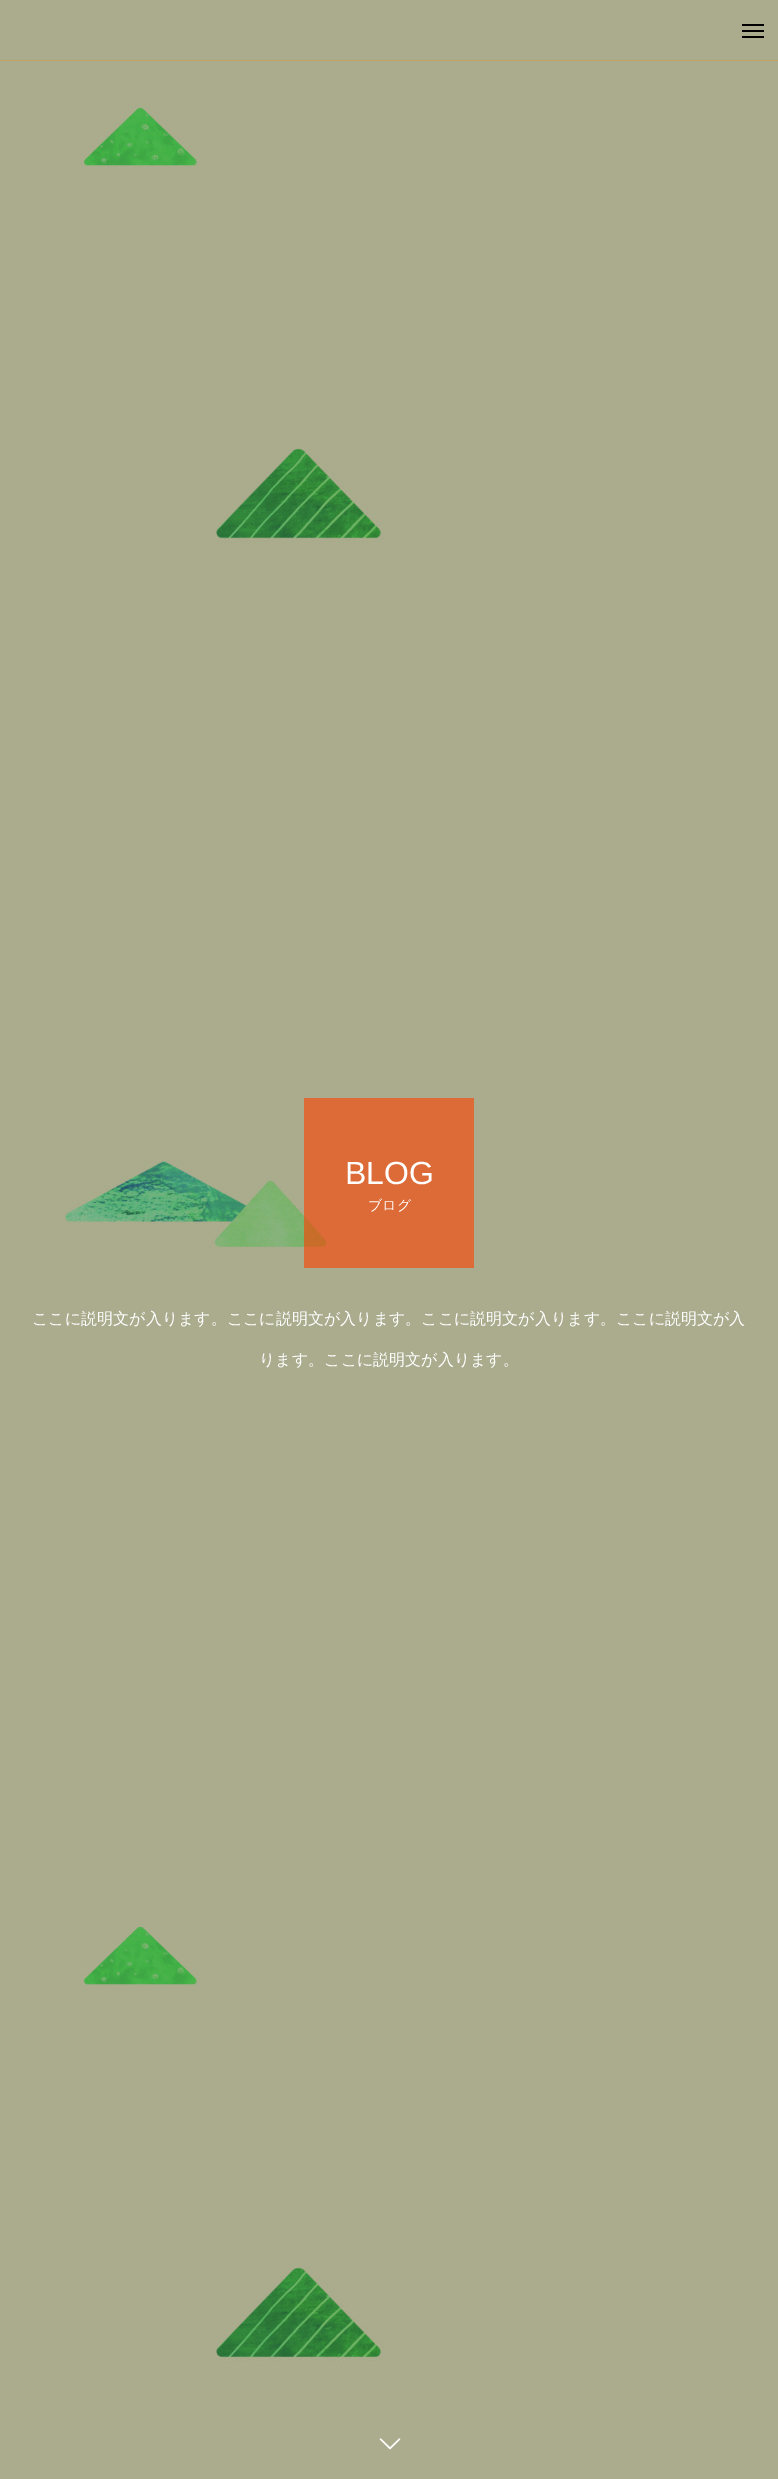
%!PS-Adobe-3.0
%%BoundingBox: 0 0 778 2479
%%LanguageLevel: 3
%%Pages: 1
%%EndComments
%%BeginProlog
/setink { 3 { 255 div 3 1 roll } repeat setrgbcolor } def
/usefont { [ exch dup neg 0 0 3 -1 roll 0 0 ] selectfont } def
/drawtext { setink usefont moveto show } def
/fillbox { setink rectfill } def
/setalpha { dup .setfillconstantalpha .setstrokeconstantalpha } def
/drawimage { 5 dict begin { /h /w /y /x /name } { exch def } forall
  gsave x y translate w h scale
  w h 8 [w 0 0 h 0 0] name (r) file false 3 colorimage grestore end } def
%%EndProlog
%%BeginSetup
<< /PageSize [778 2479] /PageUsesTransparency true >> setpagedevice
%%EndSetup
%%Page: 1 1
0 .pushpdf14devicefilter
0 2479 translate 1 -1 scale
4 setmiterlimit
0 0 778 2479 255 255 255 fillbox
(assets/img1.rgb) 0 0 778 2479 drawimage
0 60 778 1 196 162 96 fillbox
742 24 22 2 0 0 0 fillbox
742 30 22 2 0 0 0 fillbox
742 36 22 2 0 0 0 fillbox
0.6 setalpha
304 1098 170 170 255 63 0 fillbox
1 setalpha
(BLOG) 345 1184 /LiberationSans-Regular 32 255 255 255 drawtext
(ブログ) 368 1210 /WenQuanYiZenHei-Medium 14 255 255 255 drawtext
(ここに説明文が入ります。ここに説明文が入ります。ここに説明文が入ります。ここに説明文が入) 32 1324 /WenQuanYiZenHei-Medium 16 255 255 255 drawtext
(ります。ここに説明文が入ります。) 259 1365 /WenQuanYiZenHei-Medium 16 255 255 255 drawtext
(assets/img2.rgb) 379 2438 22 12 drawimage
.poppdf14devicefilter showpage
%%EOF
